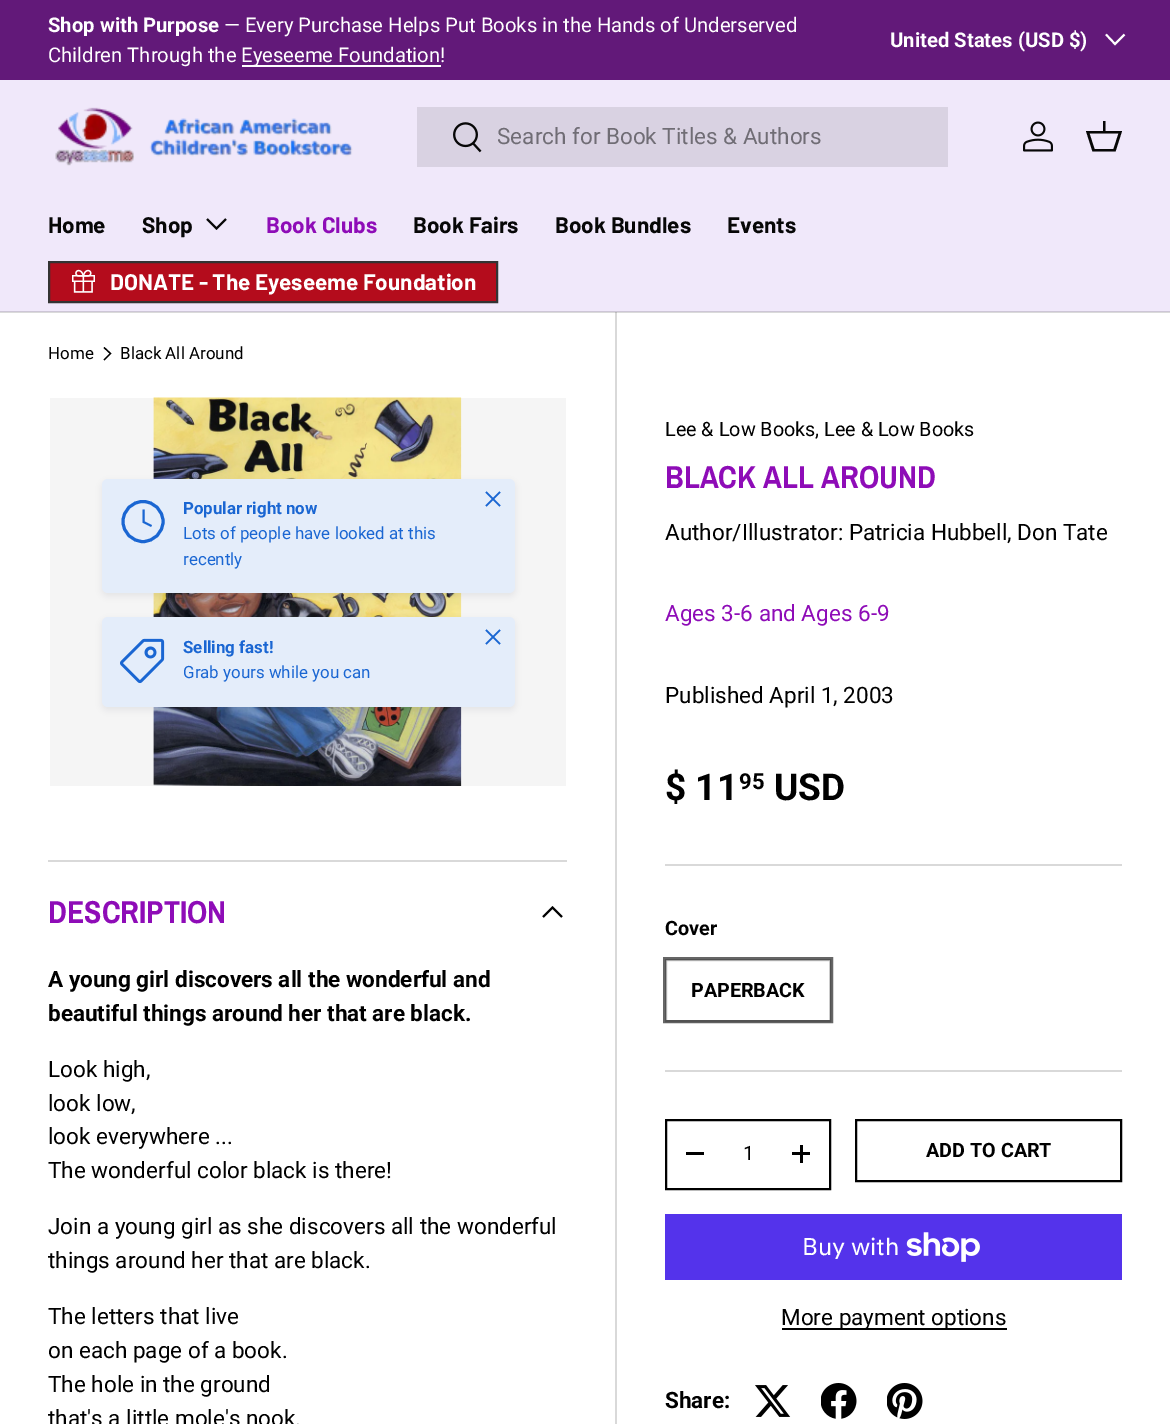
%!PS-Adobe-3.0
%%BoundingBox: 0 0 1170 1424
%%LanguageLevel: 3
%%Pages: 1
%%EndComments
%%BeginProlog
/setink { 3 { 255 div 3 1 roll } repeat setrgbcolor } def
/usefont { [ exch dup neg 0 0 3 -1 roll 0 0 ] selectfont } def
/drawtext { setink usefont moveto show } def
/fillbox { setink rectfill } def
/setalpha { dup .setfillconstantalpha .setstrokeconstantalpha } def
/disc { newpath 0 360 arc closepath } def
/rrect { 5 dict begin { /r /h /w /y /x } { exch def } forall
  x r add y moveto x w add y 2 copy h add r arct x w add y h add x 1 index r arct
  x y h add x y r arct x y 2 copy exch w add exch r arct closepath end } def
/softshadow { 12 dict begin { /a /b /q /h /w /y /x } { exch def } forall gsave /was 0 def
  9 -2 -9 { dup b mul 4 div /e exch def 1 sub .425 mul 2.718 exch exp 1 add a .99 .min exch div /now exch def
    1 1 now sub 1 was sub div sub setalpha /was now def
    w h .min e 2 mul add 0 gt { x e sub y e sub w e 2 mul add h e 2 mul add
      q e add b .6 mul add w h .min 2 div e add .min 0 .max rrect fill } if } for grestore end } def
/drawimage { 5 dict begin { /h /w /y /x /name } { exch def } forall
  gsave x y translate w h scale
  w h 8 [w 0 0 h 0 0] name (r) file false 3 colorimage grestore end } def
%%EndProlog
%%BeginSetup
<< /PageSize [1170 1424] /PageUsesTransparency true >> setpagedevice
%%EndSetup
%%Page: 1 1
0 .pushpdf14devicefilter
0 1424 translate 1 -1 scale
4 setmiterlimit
0 0 1170 1424 255 255 255 fillbox
0 312 1170 1 218 218 218 fillbox
0 0 1170 80 98 25 121 fillbox
(Shop with Purpose) 48 32 /Roboto-Bold 20.25 255 255 255 drawtext
(— Every Purchase Helps Put Books in the Hands of Underserved) 224 32 /Roboto-Regular 20.25 255 255 255 drawtext
(Children Through the) 48 62 /Roboto-Regular 20.25 255 255 255 drawtext
242 65 199 2 255 255 255 fillbox
(Eyeseeme Foundation!) 241 62 /Roboto-Regular 20.25 255 255 255 drawtext
(United States \(USD $\)) 890 47 /Roboto-Bold 20.25 255 255 255 drawtext
1.9 setlinewidth
1124.5 34.5 moveto 1115 44 lineto 1106 34.5 lineto stroke
0 80 1170 231 240 232 250 fillbox
615 311 2 1113 217 217 217 fillbox
0 311 1170 1 205 198 214 fillbox
(assets/img1.rgb) 55 107 298 59 drawimage
417 107 531 60 217 210 226 fillbox
(assets/img2.rgb) 453 122 29 31 drawimage
(Search for Book Titles & Authors) 497 144 /Roboto-Regular 22.5 112 109 117 drawtext
(assets/img3.rgb) 1023 121 30 31 drawimage
7 7 7 setink
1103 131 moveto 1103 121 lineto 1105.5 121 lineto 1105.5 131 lineto 1122 131 lineto 1115.5 151.5 lineto 1092.5 151.5 lineto 1086 131 lineto closepath 1089.5 133.5 moveto 1094.5 149 lineto 1113.5 149 lineto 1118.5 133.5 lineto closepath fill
(Home) 48 233 /Barlow-Bold 22.5 7 7 7 drawtext
(Shop) 142 233 /Barlow-Bold 22.5 7 7 7 drawtext
226 219 moveto 216.5 228.5 lineto 207 219 lineto stroke
(Book Clubs) 266 233 /Barlow-Bold 22.5 142 12 183 drawtext
(Book Fairs) 413 233 /Barlow-Bold 22.5 7 7 7 drawtext
(Book Bundles) 555 233 /Barlow-Bold 22.5 7 7 7 drawtext
(Events) 727 233 /Barlow-Bold 22.5 7 7 7 drawtext
gsave 50 263 moveto 496 263 lineto 496 301 lineto 50 301 lineto closepath clip newpath
<< /ShadingType 2 /ColorSpace /DeviceRGB /Coords [-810 123 462 441] /Extend [true true] /Function << /FunctionType 3 /Domain [0 1] /Functions [<< /FunctionType 2 /Domain [0 1] /C0 [0.796 0.2 0.259] /C1 [0.796 0.2 0.259] /N 1 >> << /FunctionType 2 /Domain [0 1] /C0 [0.706 0.047 0.11] /C1 [0.706 0.047 0.11] /N 1 >>] /Bounds [0.6] /Encode [0 1 0 1] >> >> shfill grestore
51 51 51 setink
2 setlinewidth
49 262 448 40 rectstroke
(assets/img4.rgb) 72 269 23 24 drawimage
(DONATE - The Eyeseeme Foundation) 110 290 /Barlow-Bold 22.5 255 255 255 drawtext
(Home) 48 359 /Roboto-Regular 16.9 0 0 0 drawtext
1.3 setlinewidth
104 347.5 moveto 110.5 353.5 lineto 104 360 lineto stroke
(Black All Around) 120 359 /Roboto-Regular 16.9 0 0 0 drawtext
50 398 516 388 245 245 245 fillbox
(assets/img5.rgb) 153 397 309 389 drawimage
33 43 54 setink
102 482 413 114 6 3 0.08 softshadow
228 237 250 setink
102 479 413 114 6 rrect fill
26 102 210 setink
3 setlinewidth
143 521.5 20 disc stroke
2 setlinewidth
143.5 509.5 moveto 143.5 522 lineto 151.5 526 lineto stroke
(Popular right now) 183 514 /Roboto-Bold 16.9 26 102 210 drawtext
(Lots of people have looked at this) 183 539 /Roboto-Regular 16.9 26 102 210 drawtext
(recently) 183 565 /Roboto-Regular 16.9 26 102 210 drawtext
1.5 setlinewidth
1 setlinejoin
486 506 moveto 500 492 lineto 486 492 moveto 500 506 lineto stroke
33 43 54 setink
102 620 413 90 6 3 0.08 softshadow
228 237 250 setink
102 617 413 90 6 rrect fill
(assets/img6.rgb) 120 638 45 46 drawimage
(Selling fast!) 183 653 /Roboto-Bold 16.9 26 102 210 drawtext
(Grab yours while you can) 183 678 /Roboto-Regular 16.9 26 102 210 drawtext
486 644 moveto 500 630 lineto 486 630 moveto 500 644 lineto stroke
615 312 2 1 186 186 186 fillbox
(Lee & Low Books, Lee & Low Books) 665 436 /Roboto-Regular 19.75 0 0 0 drawtext
(BLACK ALL AROUND) 665 488 /ArchivoNarrow-Bold 31.75 142 12 183 drawtext
(Author/Illustrator: Patricia Hubbell, Don Tate) 665 540 /Roboto-Regular 22.5 0 0 0 drawtext
(Ages 3-6 and Ages 6-9) 665 621 /Roboto-Regular 22.5 142 12 183 drawtext
(Published April 1, 2003) 665 703 /Roboto-Regular 22.5 0 0 0 drawtext
($ 11) 665 800 /Roboto-Bold 37 0 0 0 drawtext
(95) 739 789 /Roboto-Bold 22 0 0 0 drawtext
(USD) 774 800 /Roboto-Bold 37 0 0 0 drawtext
665 864 457 2 217 217 217 fillbox
(Cover) 665 935 /Roboto-Bold 19.75 0 0 0 drawtext
204 204 204 setink
2 setlinewidth
0 setlinejoin
666 960 164 61 rectstroke
0.6 setalpha
0 0 0 setink
3 setlinewidth
664.5 958.5 167 63 rectstroke
1 setalpha
(PAPERBACK) 691 997 /Roboto-Bold 19.75 0 0 0 drawtext
665 1070 457 2 217 217 217 fillbox
0 0 0 setink
2 setlinewidth
666 1120 164 69 rectstroke
686 1152 18 3 0 0 0 fillbox
(1) 743 1160 /Roboto-Regular 19.75 0 0 0 drawtext
792 1152 18 3 0 0 0 fillbox
800 1145 3 18 0 0 0 fillbox
856 1120 265 61 rectstroke
(ADD TO CART) 926 1157 /Roboto-Bold 19.75 0 0 0 drawtext
665 1214 457 66 84 51 235 fillbox
(Buy with) 802 1255 /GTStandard-Regular 24 255 255 255 drawtext
(assets/img7.rgb) 906 1232 74 30 drawimage
782 1328 225 2 0 0 0 fillbox
(More payment options) 781 1325 /Roboto-Regular 22.5 0 0 0 drawtext
(Share:) 665 1408 /Roboto-Bold 22.5 0 0 0 drawtext
(assets/img8.rgb) 755 1385 36 32 drawimage
(assets/img9.rgb) 821 1383 36 36 drawimage
(assets/img10.rgb) 887 1383 36 36 drawimage
48 860 519 2 217 217 217 fillbox
(DESCRIPTION) 48 923 /ArchivoNarrow-Bold 31.75 142 12 183 drawtext
0 0 0 setink
1.9 setlinewidth
562 917 moveto 552.5 907.5 lineto 543 917 lineto stroke
(A young girl discovers all the wonderful and) 48 987 /Roboto-Bold 22.5 0 0 0 drawtext
(beautiful things around her that are black.) 48 1021 /Roboto-Bold 22.5 0 0 0 drawtext
(Look high,) 48 1077 /Roboto-Regular 22.5 0 0 0 drawtext
(look low,) 48 1111 /Roboto-Regular 22.5 0 0 0 drawtext
(look everywhere ...) 48 1144 /Roboto-Regular 22.5 0 0 0 drawtext
(The wonderful color black is there!) 48 1178 /Roboto-Regular 22.5 0 0 0 drawtext
(Join a young girl as she discovers all the wonderful) 48 1234 /Roboto-Regular 22.5 0 0 0 drawtext
(things around her that are black.) 48 1268 /Roboto-Regular 22.5 0 0 0 drawtext
(The letters that live) 48 1324 /Roboto-Regular 22.5 0 0 0 drawtext
(on each page of a book.) 48 1358 /Roboto-Regular 22.5 0 0 0 drawtext
(The hole in the ground) 48 1392 /Roboto-Regular 22.5 0 0 0 drawtext
(that's a little mole's nook.) 48 1426 /Roboto-Regular 22.5 0 0 0 drawtext
.poppdf14devicefilter showpage
%%EOF
